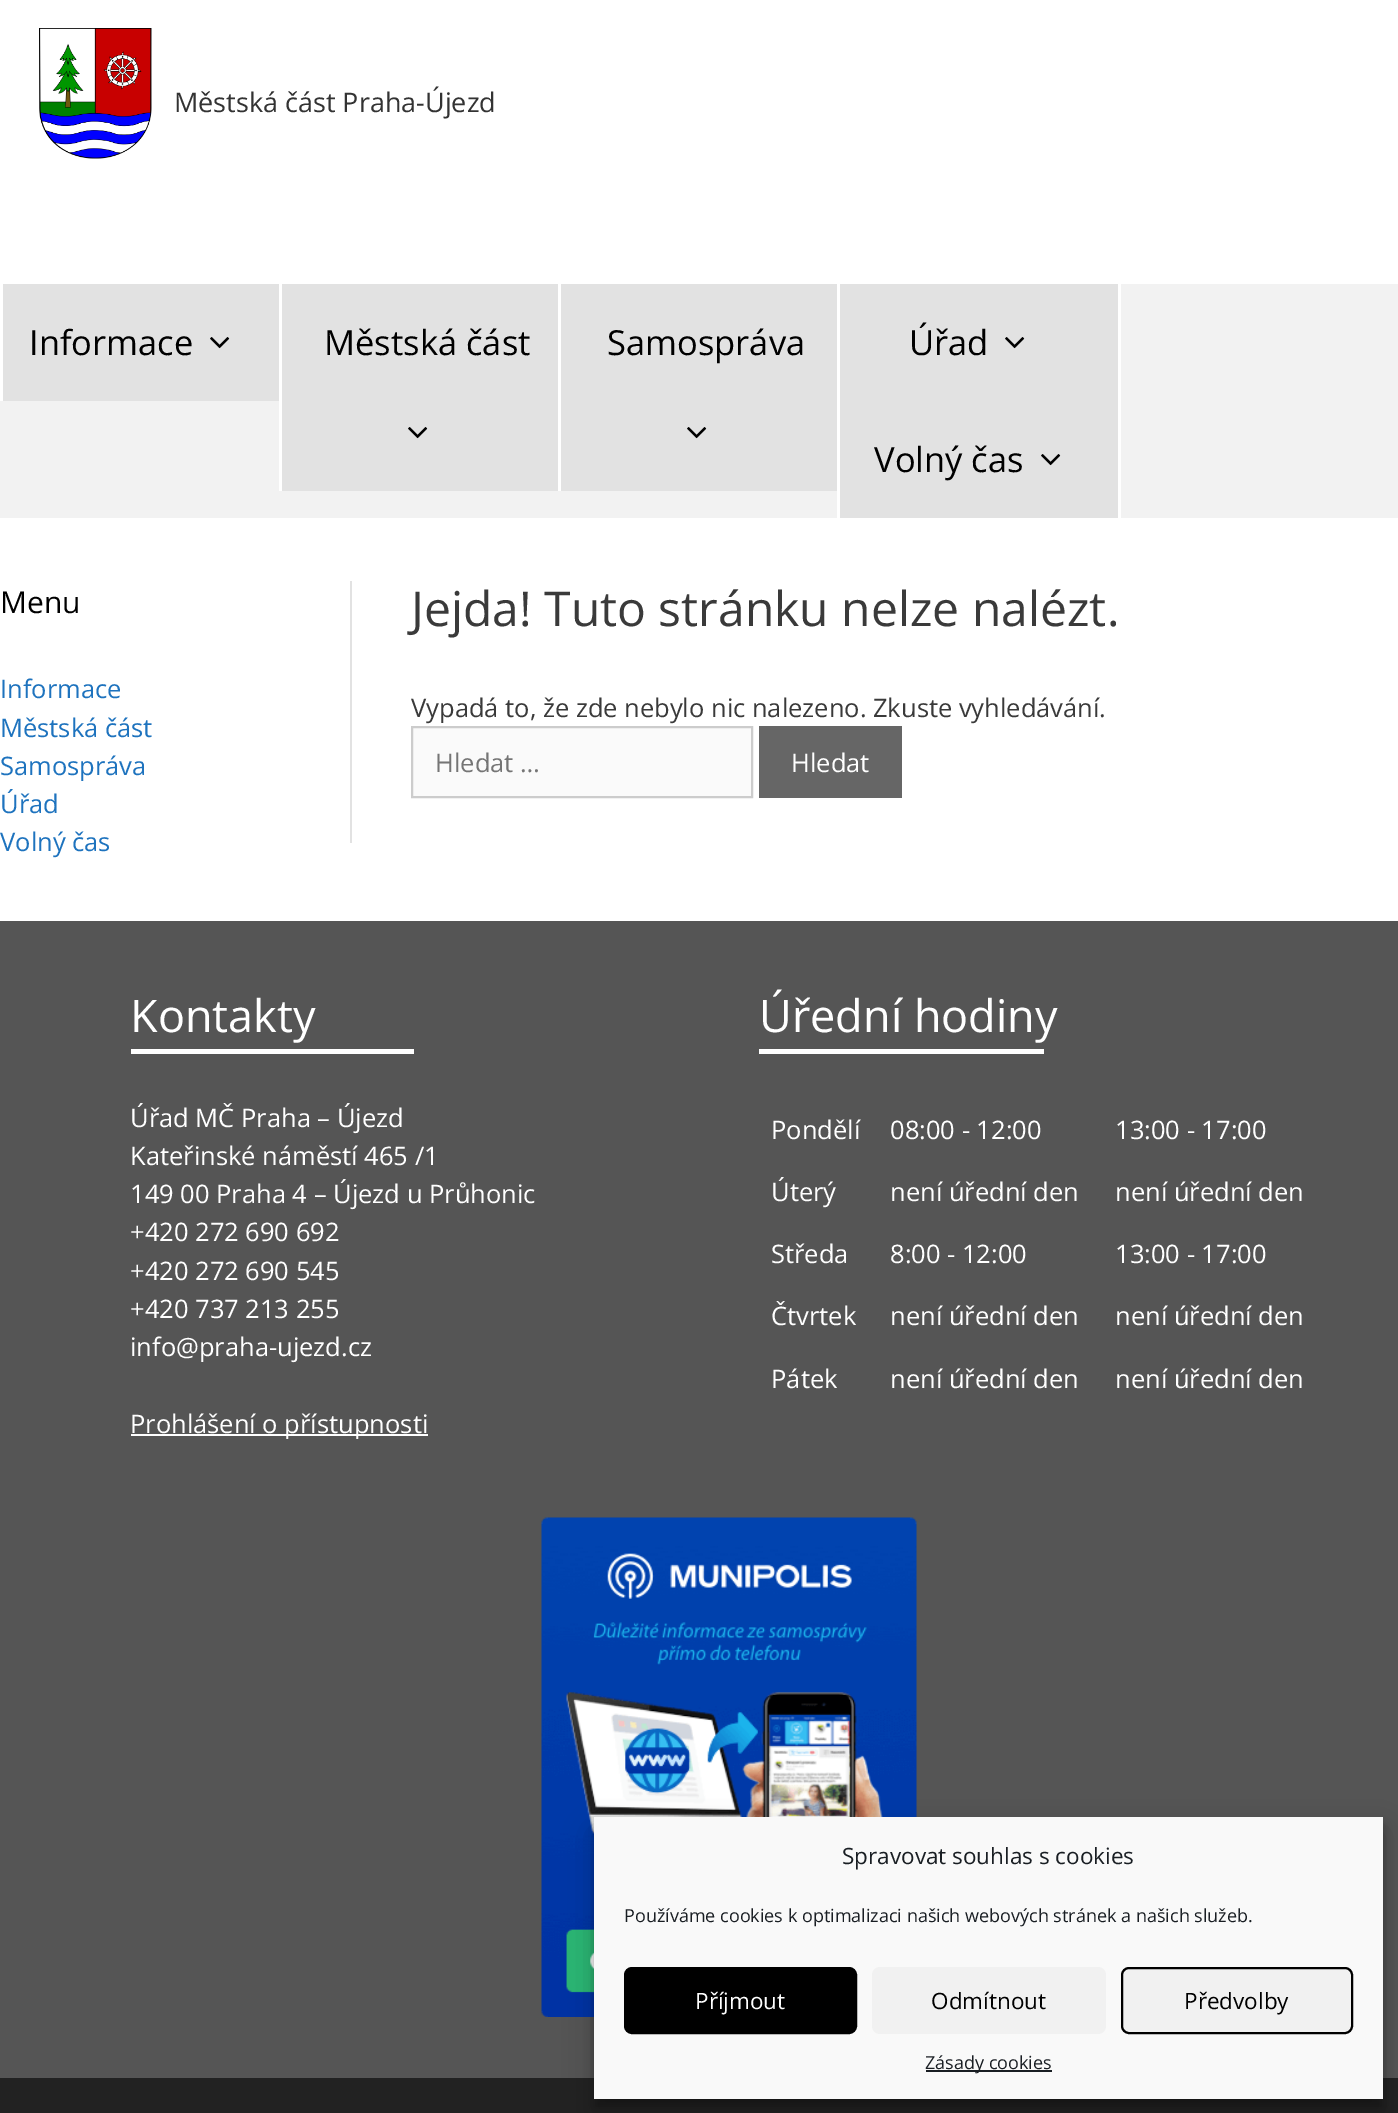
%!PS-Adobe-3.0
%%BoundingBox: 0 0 1398 2113
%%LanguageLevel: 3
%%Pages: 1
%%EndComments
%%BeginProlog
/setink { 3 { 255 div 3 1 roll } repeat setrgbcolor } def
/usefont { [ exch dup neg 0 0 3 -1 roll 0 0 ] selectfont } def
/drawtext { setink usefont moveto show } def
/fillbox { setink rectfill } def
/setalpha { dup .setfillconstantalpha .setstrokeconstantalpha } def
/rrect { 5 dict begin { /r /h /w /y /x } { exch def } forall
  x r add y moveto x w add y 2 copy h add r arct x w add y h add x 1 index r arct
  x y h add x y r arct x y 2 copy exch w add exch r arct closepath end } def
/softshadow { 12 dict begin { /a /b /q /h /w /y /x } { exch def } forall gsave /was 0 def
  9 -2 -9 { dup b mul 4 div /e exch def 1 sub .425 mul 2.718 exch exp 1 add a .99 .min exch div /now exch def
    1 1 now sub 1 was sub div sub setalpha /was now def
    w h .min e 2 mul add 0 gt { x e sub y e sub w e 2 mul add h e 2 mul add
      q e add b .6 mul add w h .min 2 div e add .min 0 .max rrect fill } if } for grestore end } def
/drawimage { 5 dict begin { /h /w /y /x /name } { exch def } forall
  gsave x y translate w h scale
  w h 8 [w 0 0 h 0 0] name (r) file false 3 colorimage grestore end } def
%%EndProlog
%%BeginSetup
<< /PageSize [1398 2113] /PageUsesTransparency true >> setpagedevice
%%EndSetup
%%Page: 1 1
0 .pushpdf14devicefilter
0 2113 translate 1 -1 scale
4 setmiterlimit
0 0 1398 2113 255 255 255 fillbox
(assets/img1.rgb) 39 28 113 131 drawimage
(Městská část Praha-Újezd) 174 112 /OpenSans-Regular 27 51 51 51 drawtext
0 284 1398 234 242 242 242 fillbox
0 284 3 117 255 255 255 fillbox
3 284 276 117 226 226 226 fillbox
(Informace) 29 355 /OpenSans-Regular 34.5 0 0 0 drawtext
(assets/img2.rgb) 210 337 20 12 drawimage
558 284 3 207 255 255 255 fillbox
279 284 3 207 255 255 255 fillbox
282 284 276 207 226 226 226 fillbox
(Městská část) 324 355 /OpenSans-Regular 34.5 0 0 0 drawtext
(assets/img2.rgb) 408 427 20 12 drawimage
837 284 3 234 255 255 255 fillbox
561 284 276 207 226 226 226 fillbox
(Samospráva) 607 355 /OpenSans-Regular 34.5 0 0 0 drawtext
(assets/img2.rgb) 687 427 20 12 drawimage
1118 284 3 234 255 255 255 fillbox
840 284 278 234 226 226 226 fillbox
(Úřad) 909 355 /OpenSans-Regular 34.5 0 0 0 drawtext
(assets/img2.rgb) 1005 337 20 12 drawimage
(Volný čas) 874 472 /OpenSans-Regular 34.5 0 0 0 drawtext
(assets/img2.rgb) 1041 454 20 12 drawimage
(Menu) 0 613 /OpenSans-Regular 30 0 0 0 drawtext
(Informace) 0 698 /OpenSans-Regular 25.5 30 115 190 drawtext
(Městská část) 0 737 /OpenSans-Regular 25.5 30 115 190 drawtext
(Samospráva) 0 775 /OpenSans-Regular 25.5 30 115 190 drawtext
(Úřad) 0 813 /OpenSans-Regular 25.5 30 115 190 drawtext
(Volný čas) 0 851 /OpenSans-Regular 25.5 30 115 190 drawtext
350 581 2 262 226 226 226 fillbox
(Jejda! Tuto stránku nelze nalézt.) 411 626 /OpenSans-Regular 48 58 58 58 drawtext
(Vypadá to, že zde nebylo nic nalezeno. Zkuste vyhledávání.) 411 717 /OpenSans-Regular 25.5 58 58 58 drawtext
250 250 250 setink
412 727 moveto 752 727 lineto 752 797 lineto 412 797 lineto closepath gsave fill grestore
204 204 204 setink
2 setlinewidth
stroke
(Hledat …) 435 772 /OpenSans-Regular 25.5 117 117 117 drawtext
759 726 143 72 102 102 102 fillbox
(Hledat) 791 772 /OpenSans-Regular 25.5 255 255 255 drawtext
0 921 1398 1157 85 85 85 fillbox
(Kontakty) 130 1032 /OpenSans-Regular 45 255 255 255 drawtext
131 1049 283 5 255 255 255 fillbox
(Úřad MČ Praha – Újezd) 130 1127 /OpenSans-Regular 25.5 255 255 255 drawtext
(Kateřinské náměstí 465 /1) 130 1165 /OpenSans-Regular 25.5 255 255 255 drawtext
(149 00 Praha 4 – Újezd u Průhonic) 130 1203 /OpenSans-Regular 25.5 255 255 255 drawtext
(+420 272 690 692) 130 1241 /OpenSans-Regular 25.5 255 255 255 drawtext
(+420 272 690 545) 130 1280 /OpenSans-Regular 25.5 255 255 255 drawtext
(+420 737 213 255) 130 1318 /OpenSans-Regular 25.5 255 255 255 drawtext
(info@praha-ujezd.cz) 130 1356 /OpenSans-Regular 25.5 255 255 255 drawtext
131 1434 297 2 255 255 255 fillbox
(Prohlášení o přístupnosti) 130 1433 /OpenSans-Regular 25.5 255 255 255 drawtext
(Úřední hodiny) 759 1032 /OpenSans-Regular 45 255 255 255 drawtext
759 1049 285 5 255 255 255 fillbox
(Pondělí) 771 1139 /OpenSans-Regular 25.5 255 255 255 drawtext
(08:00 - 12:00) 890 1139 /OpenSans-Regular 25.5 255 255 255 drawtext
(13:00 - 17:00) 1115 1139 /OpenSans-Regular 25.5 255 255 255 drawtext
(Úterý) 771 1201 /OpenSans-Regular 25.5 255 255 255 drawtext
(není úřední den) 890 1201 /OpenSans-Regular 25.5 255 255 255 drawtext
(není úřední den) 1115 1201 /OpenSans-Regular 25.5 255 255 255 drawtext
(Středa) 771 1263 /OpenSans-Regular 25.5 255 255 255 drawtext
(8:00 - 12:00) 890 1263 /OpenSans-Regular 25.5 255 255 255 drawtext
(13:00 - 17:00) 1115 1263 /OpenSans-Regular 25.5 255 255 255 drawtext
(Čtvrtek) 771 1325 /OpenSans-Regular 25.5 255 255 255 drawtext
(není úřední den) 890 1325 /OpenSans-Regular 25.5 255 255 255 drawtext
(není úřední den) 1115 1325 /OpenSans-Regular 25.5 255 255 255 drawtext
(Pátek) 771 1388 /OpenSans-Regular 25.5 255 255 255 drawtext
(není úřední den) 890 1388 /OpenSans-Regular 25.5 255 255 255 drawtext
(není úřední den) 1115 1388 /OpenSans-Regular 25.5 255 255 255 drawtext
(assets/img3.rgb) 541 1517 376 500 drawimage
0 2078 1398 35 34 34 34 fillbox
0 0 0 setink
594 1826 789 282 0 4.5 0.23 softshadow
594 1832 789 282 0 15 0.19 softshadow
594 1817 789 282 249 249 249 fillbox
(Spravovat souhlas s cookies) 842 1864 /OpenSans-Regular 22.5 25 30 35 drawtext
(Používáme cookies k optimalizaci našich webových stránek a našich služeb.) 624 1922 /OpenSans-Regular 18 25 30 35 drawtext
0 0 0 setink
625 1968 231 65 7 rrect gsave fill grestore
stroke
(Příjmout) 695 2009 /OpenSans-Regular 22.5 255 255 255 drawtext
241 241 241 setink
872 1967 234 67 8 rrect fill
(Odmítnout) 931 2009 /OpenSans-Regular 22.5 0 0 0 drawtext
241 241 241 setink
1122 1968 230 65 7 rrect gsave fill grestore
0 0 0 setink
stroke
(Předvolby) 1184 2009 /OpenSans-Regular 22.5 0 0 0 drawtext
926 2070 126 2 25 30 35 fillbox
(Zásady cookies) 925 2069 /OpenSans-Regular 18 25 30 35 drawtext
.poppdf14devicefilter showpage
%%EOF
